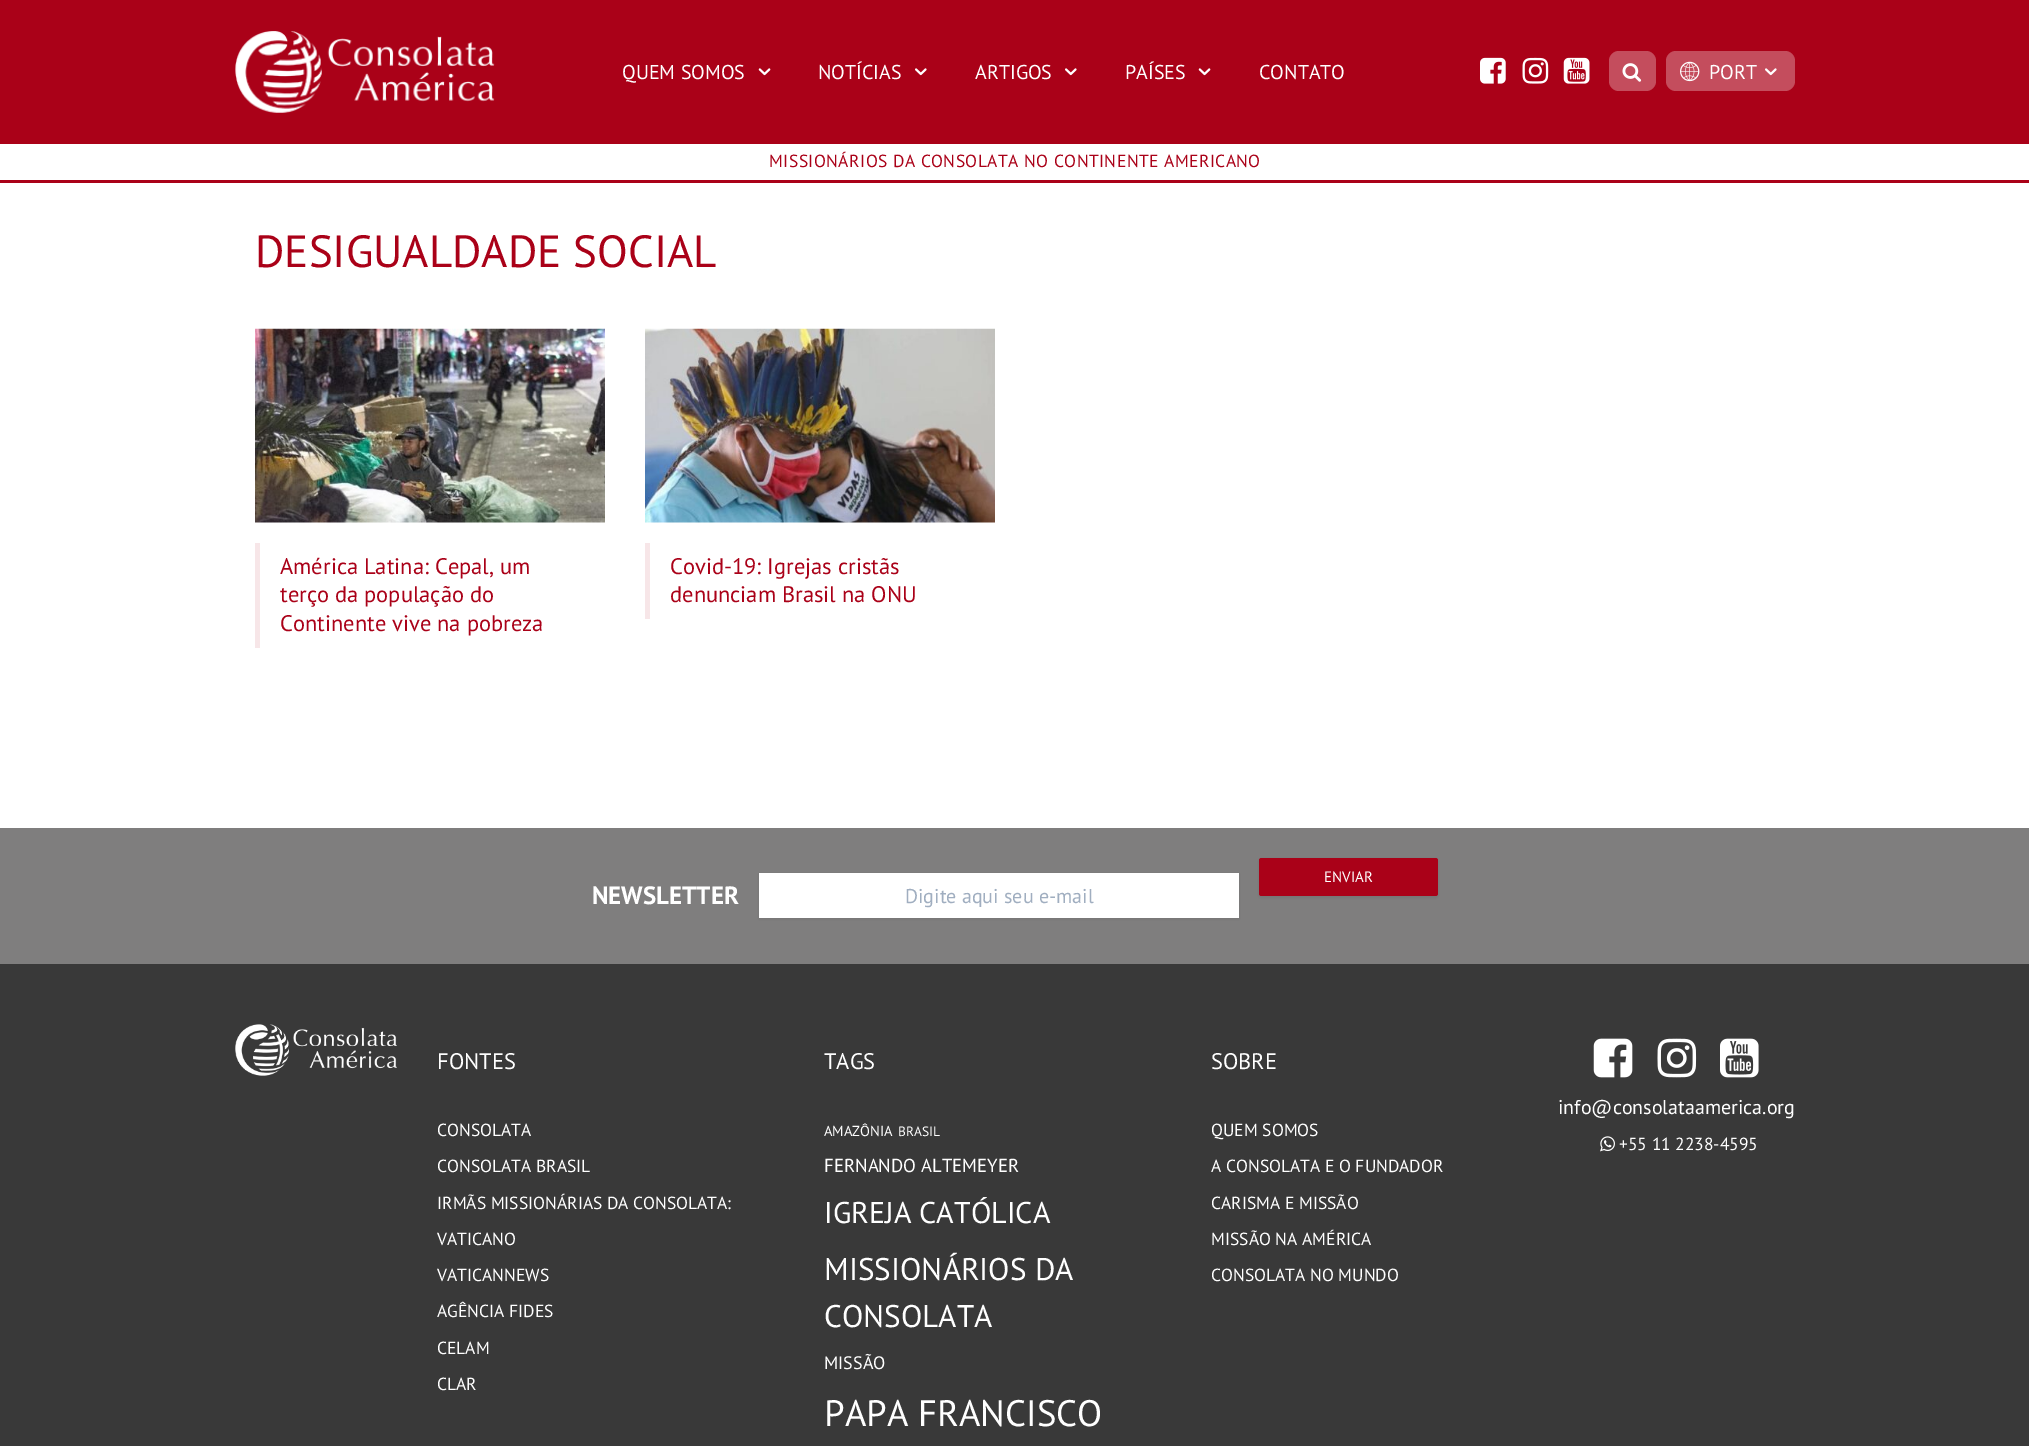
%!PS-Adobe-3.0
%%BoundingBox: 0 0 2029 1446
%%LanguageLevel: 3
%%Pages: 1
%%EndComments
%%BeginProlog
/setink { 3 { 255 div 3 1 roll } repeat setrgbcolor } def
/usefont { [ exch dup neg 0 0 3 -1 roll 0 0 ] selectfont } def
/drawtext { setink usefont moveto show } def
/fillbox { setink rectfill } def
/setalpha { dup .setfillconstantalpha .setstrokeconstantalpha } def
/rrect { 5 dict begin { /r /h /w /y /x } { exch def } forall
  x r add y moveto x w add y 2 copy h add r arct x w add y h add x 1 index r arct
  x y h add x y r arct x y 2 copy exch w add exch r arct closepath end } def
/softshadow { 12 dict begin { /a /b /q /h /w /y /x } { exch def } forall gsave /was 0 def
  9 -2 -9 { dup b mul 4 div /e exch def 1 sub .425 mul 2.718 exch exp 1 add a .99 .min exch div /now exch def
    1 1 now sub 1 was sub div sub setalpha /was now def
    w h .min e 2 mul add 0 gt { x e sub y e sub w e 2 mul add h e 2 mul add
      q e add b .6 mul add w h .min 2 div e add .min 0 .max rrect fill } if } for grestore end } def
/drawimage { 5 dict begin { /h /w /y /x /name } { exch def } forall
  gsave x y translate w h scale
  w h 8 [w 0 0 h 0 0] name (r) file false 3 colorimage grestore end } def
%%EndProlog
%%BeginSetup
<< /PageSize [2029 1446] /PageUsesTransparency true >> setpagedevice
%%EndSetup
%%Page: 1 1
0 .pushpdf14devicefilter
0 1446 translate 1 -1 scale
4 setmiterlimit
0 0 2029 1446 255 255 255 fillbox
0 0 2029 183 170 1 24 fillbox
(assets/img1.rgb) 235 31 260 82 drawimage
(QUEM SOMOS) 622 79 /PTSans-Regular 20 255 255 255 drawtext
(assets/img2.rgb) 758 68 13 8 drawimage
(NOTÍCIAS) 818 79 /PTSans-Regular 20 255 255 255 drawtext
(assets/img3.rgb) 915 68 12 8 drawimage
(ARTIGOS) 975 79 /PTSans-Regular 20 255 255 255 drawtext
(assets/img3.rgb) 1065 68 12 8 drawimage
(PAÍSES) 1125 79 /PTSans-Regular 20 255 255 255 drawtext
(assets/img2.rgb) 1198 68 13 8 drawimage
(CONTATO) 1259 79 /PTSans-Regular 20 255 255 255 drawtext
(assets/img4.rgb) 1480 57 26 27 drawimage
(assets/img5.rgb) 1522 57 27 27 drawimage
(assets/img6.rgb) 1563 57 27 27 drawimage
196 77 93 setink
1609 51 47 40 10 rrect fill
(assets/img7.rgb) 1622 63 20 19 drawimage
1666 51 129 40 10 rrect fill
(assets/img8.rgb) 1680 61 20 21 drawimage
(PORT) 1709 79 /PTSans-Regular 20 255 255 255 drawtext
(assets/img9.rgb) 1765 68 12 8 drawimage
0 144 2029 36 255 255 255 fillbox
/PTSans-Regular 17.5 usefont
170 1 24 setink
769 167 moveto 0.45 0 (MISSIONÁRIOS DA CONSOLATA NO CONTINENTE AMERICANO) ashow
(DESIGUALDADE SOCIAL) 255 267 /PTSans-Regular 45 170 1 24 drawtext
(assets/img10.rgb) 255 328 350 195 drawimage
255 543 5 105 247 230 232 fillbox
(América Latina: Cepal, um) 280 574 /PTSans-Regular 22.5 170 1 24 drawtext
(terço da população do) 280 602 /PTSans-Regular 22.5 170 1 24 drawtext
(Continente vive na pobreza) 280 631 /PTSans-Regular 22.5 170 1 24 drawtext
(assets/img11.rgb) 645 328 350 195 drawimage
645 543 5 76 247 230 232 fillbox
(Covid-19: Igrejas cristãs) 670 574 /PTSans-Regular 22.5 170 1 24 drawtext
(denunciam Brasil na ONU) 670 602 /PTSans-Regular 22.5 170 1 24 drawtext
0 828 2029 136 127 126 126 fillbox
0 0 0 setink
1259 859 179 39 2.5 2 0.1 softshadow
170 1 24 setink
1259 858 179 38 2.5 rrect fill
(ENVIAR) 1324 882 /PTSans-Regular 15 255 255 255 drawtext
(NEWSLETTER) 592 904 /PTSans-Bold 25 255 255 255 drawtext
0 0 0 setink
759 874 480 45 0 2 0.1 softshadow
759 873 480 45 255 255 255 fillbox
(Digite aqui seu e-mail) 905 903 /PTSans-Regular 20 160 174 192 drawtext
0 964 2029 482 57 57 57 fillbox
(assets/img12.rgb) 235 1024 162 52 drawimage
(FONTES) 437 1069 /PTSans-Regular 22.5 255 255 255 drawtext
(CONSOLATA) 437 1136 /PTSans-Regular 17.5 255 255 255 drawtext
(CONSOLATA BRASIL) 437 1172 /PTSans-Regular 17.5 255 255 255 drawtext
(IRMÃS MISSIONÁRIAS DA CONSOLATA:) 437 1209 /PTSans-Regular 17.5 255 255 255 drawtext
(VATICANO) 437 1245 /PTSans-Regular 17.5 255 255 255 drawtext
(VATICANNEWS) 437 1281 /PTSans-Regular 17.5 255 255 255 drawtext
(AGÊNCIA FIDES) 437 1317 /PTSans-Regular 17.5 255 255 255 drawtext
(CELAM) 437 1354 /PTSans-Regular 17.5 255 255 255 drawtext
(CLAR) 437 1390 /PTSans-Regular 17.5 255 255 255 drawtext
(TAGS) 824 1069 /PTSans-Regular 22.5 255 255 255 drawtext
(AMAZÔNIA) 824 1136 /PTSans-Regular 14.5 255 255 255 drawtext
(BRASIL) 898 1136 /PTSans-Regular 13.5 255 255 255 drawtext
(FERNANDO ALTEMEYER) 824 1172 /PTSans-Regular 18.75 255 255 255 drawtext
(IGREJA CATÓLICA) 824 1223 /PTSans-Regular 30 255 255 255 drawtext
(MISSIONÁRIOS DA) 824 1280 /PTSans-Regular 31.25 255 255 255 drawtext
(CONSOLATA) 824 1327 /PTSans-Regular 31.25 255 255 255 drawtext
(MISSÃO) 824 1369 /PTSans-Regular 18 255 255 255 drawtext
(PAPA FRANCISCO) 824 1426 /PTSans-Regular 36.75 255 255 255 drawtext
(SOBRE) 1211 1069 /PTSans-Regular 22.5 255 255 255 drawtext
(QUEM SOMOS) 1211 1136 /PTSans-Regular 17.5 255 255 255 drawtext
(A CONSOLATA E O FUNDADOR) 1211 1172 /PTSans-Regular 17.5 255 255 255 drawtext
(CARISMA E MISSÃO) 1211 1209 /PTSans-Regular 17.5 255 255 255 drawtext
(MISSÃO NA AMÉRICA) 1211 1245 /PTSans-Regular 17.5 255 255 255 drawtext
(CONSOLATA NO MUNDO) 1211 1281 /PTSans-Regular 17.5 255 255 255 drawtext
(assets/img13.rgb) 1593 1038 40 40 drawimage
(assets/img14.rgb) 1657 1038 40 40 drawimage
(assets/img15.rgb) 1720 1038 39 40 drawimage
(info@consolataamerica.org) 1558 1114 /PTSans-Regular 20 255 255 255 drawtext
(assets/img16.rgb) 1600 1136 15 16 drawimage
(+55 11 2238-4595) 1619 1150 /PTSans-Regular 17.5 255 255 255 drawtext
.poppdf14devicefilter showpage
%%EOF
